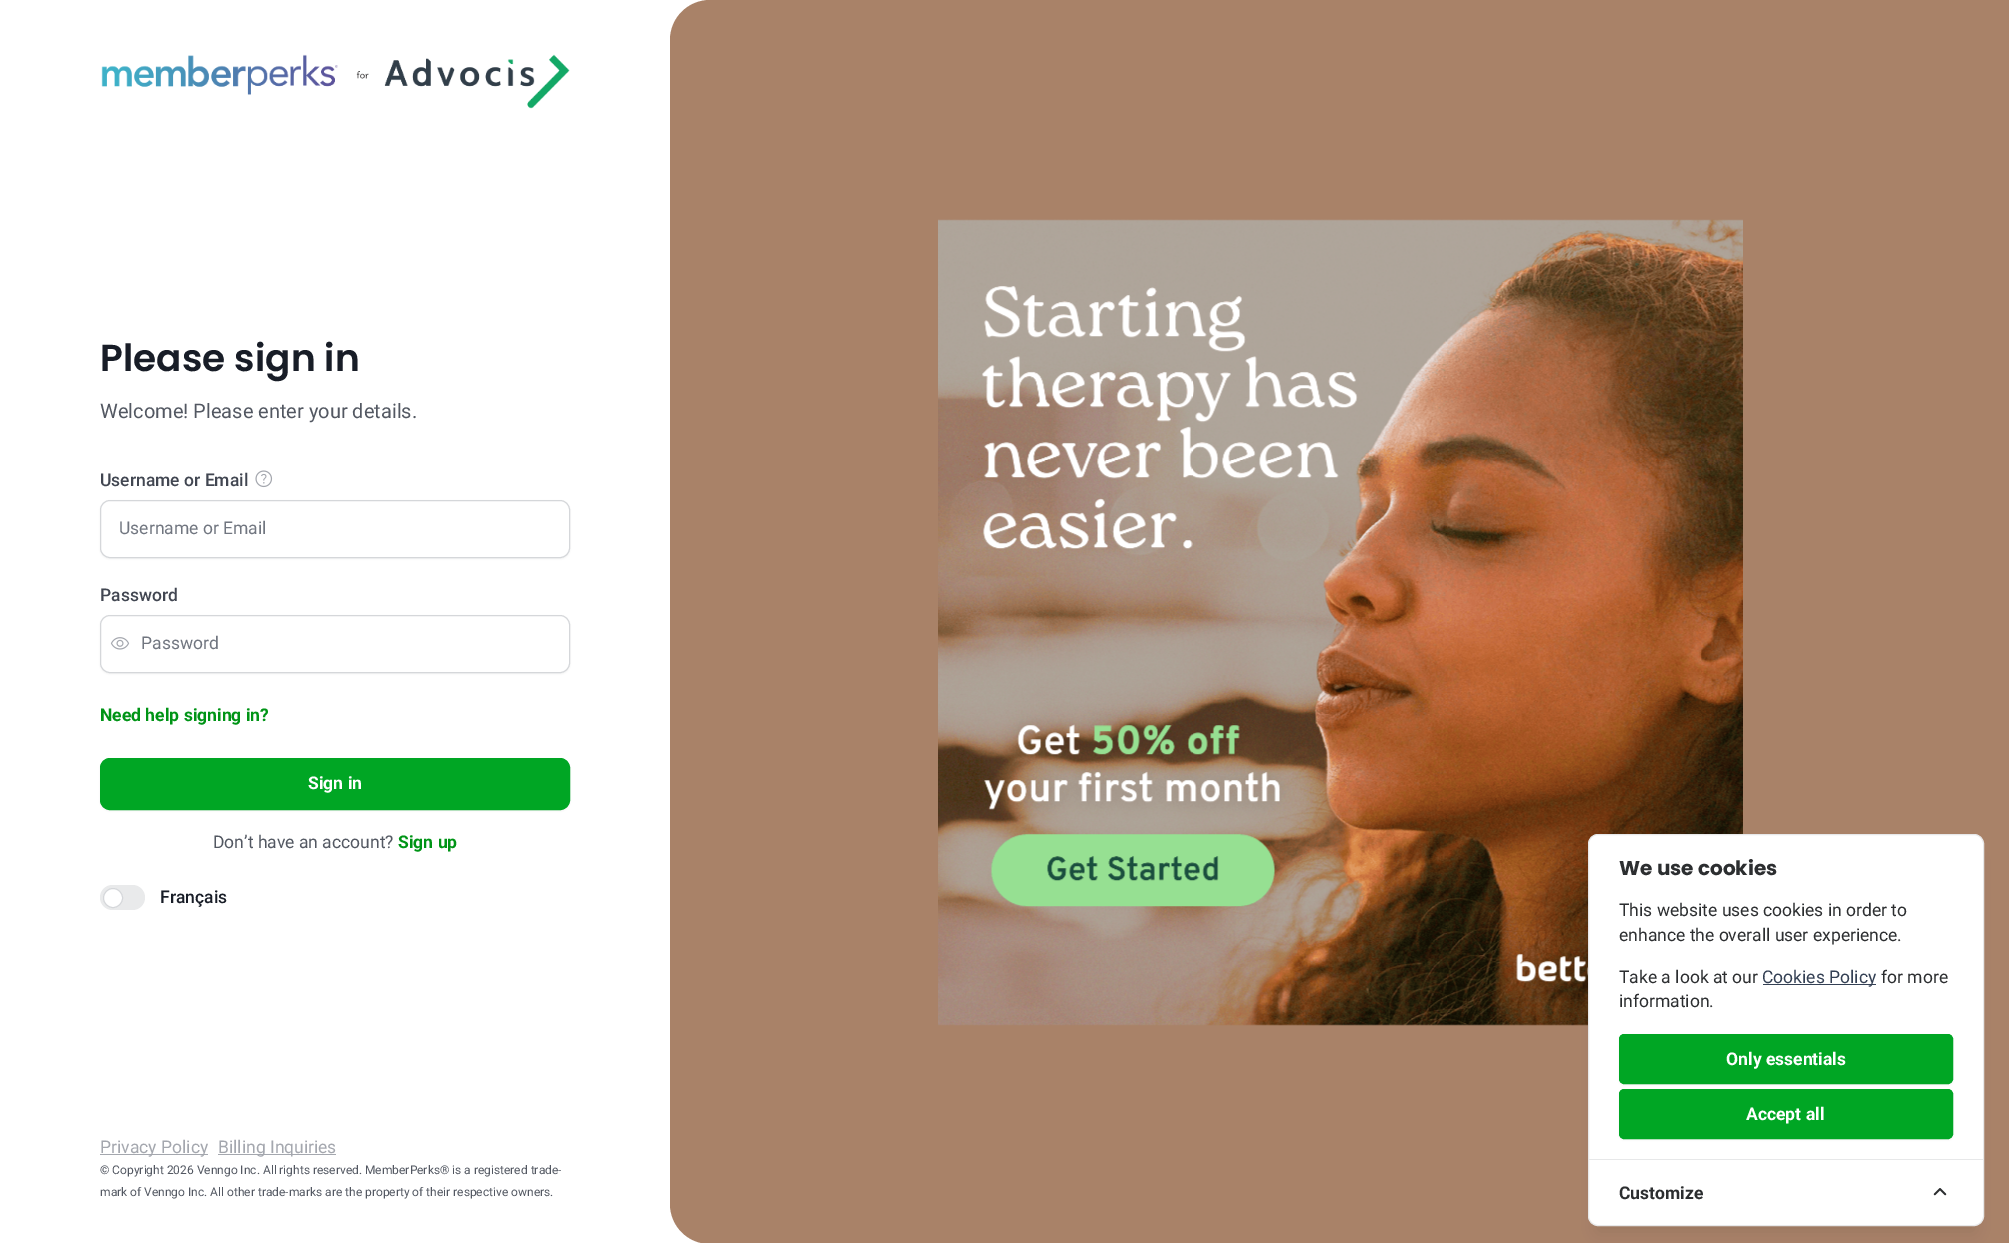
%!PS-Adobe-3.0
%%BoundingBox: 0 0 2009 1243
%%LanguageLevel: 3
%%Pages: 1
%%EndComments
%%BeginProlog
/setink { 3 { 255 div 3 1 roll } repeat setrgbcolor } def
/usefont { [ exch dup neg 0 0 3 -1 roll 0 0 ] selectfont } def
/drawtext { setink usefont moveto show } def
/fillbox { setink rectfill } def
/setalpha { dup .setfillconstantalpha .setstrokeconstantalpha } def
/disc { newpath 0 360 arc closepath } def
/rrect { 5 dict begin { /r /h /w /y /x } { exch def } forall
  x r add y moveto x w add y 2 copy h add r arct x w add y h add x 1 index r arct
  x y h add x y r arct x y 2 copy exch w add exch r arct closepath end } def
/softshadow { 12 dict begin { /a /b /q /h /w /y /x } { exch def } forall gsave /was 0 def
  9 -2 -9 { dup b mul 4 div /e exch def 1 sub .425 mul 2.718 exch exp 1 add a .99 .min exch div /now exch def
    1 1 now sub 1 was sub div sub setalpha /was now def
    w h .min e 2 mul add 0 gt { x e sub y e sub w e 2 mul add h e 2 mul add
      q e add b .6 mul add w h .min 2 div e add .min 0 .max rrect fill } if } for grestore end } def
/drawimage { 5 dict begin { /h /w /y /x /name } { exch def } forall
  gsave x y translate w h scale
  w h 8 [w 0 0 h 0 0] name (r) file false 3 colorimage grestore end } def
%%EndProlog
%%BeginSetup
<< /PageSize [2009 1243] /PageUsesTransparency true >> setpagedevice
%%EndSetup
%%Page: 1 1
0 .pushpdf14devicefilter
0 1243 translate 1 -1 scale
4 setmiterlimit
0 0 2009 1243 255 255 255 fillbox
(assets/img1.rgb) 101 54 469 55 drawimage
(Please sign in) 100 371 /Poppins-SemiBold 37.5 24 29 39 drawtext
(Welcome! Please enter your details.) 100 418 /Roboto-Regular 20 83 88 98 drawtext
(Username or Email) 100 486 /Roboto-Medium 17.5 65 70 81 drawtext
(assets/img2.rgb) 255 470 18 18 drawimage
0 0 0 setink
100 501 470 58 10 1 0.05 softshadow
255 255 255 setink
100.5 500.5 469 57 9.5 rrect gsave fill grestore
213 215 218 setink
stroke
(Username or Email) 119 534 /Roboto-Regular 17.5 113 118 128 drawtext
(Password) 100 601 /Roboto-Medium 17.5 65 70 81 drawtext
0 0 0 setink
100 616 470 58 10 1 0.05 softshadow
255 255 255 setink
100.5 615.5 469 57 9.5 rrect gsave fill grestore
213 215 218 setink
stroke
(assets/img3.rgb) 110 637 20 13 drawimage
(Password) 141 649 /Roboto-Regular 17.5 113 118 128 drawtext
(Need help signing in?) 100 721 /Roboto-Bold 17.5 0 148 22 drawtext
0 0 0 setink
100 759 470 52 10 1 0.05 softshadow
0 166 36 setink
100.5 758.5 469 51 9.5 rrect gsave fill grestore
stroke
(Sign in) 308 789 /Roboto-Bold 17.5 255 255 255 drawtext
(Don’t have an account?) 213 848 /Roboto-Regular 17.5 83 88 98 drawtext
(Sign up) 398 848 /Roboto-Bold 17.5 0 148 22 drawtext
233 234 235 setink
100 885 45 25 12.5 rrect fill
255 255 255 setink
113 898 9.5 disc gsave fill grestore
213 215 218 setink
stroke
(Français) 160 903 /Roboto-Medium 17.5 24 29 39 drawtext
100 1154 108 1 164 167 174 fillbox
(Privacy Policy) 100 1153 /Roboto-Regular 17.5 164 167 174 drawtext
218 1154 118 1 164 167 174 fillbox
(Billing Inquiries) 218 1153 /Roboto-Regular 17.5 164 167 174 drawtext
(© Copyright 2026 Venngo Inc. All rights reserved. MemberPerks® is a registered trade-) 100 1174 /Roboto-Regular 12 83 88 98 drawtext
(mark of Venngo Inc. All other trade-marks are the property of their respective owners.) 100 1196 /Roboto-Regular 12 83 88 98 drawtext
169 130 104 setink
710 0 moveto 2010 0 lineto 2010 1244 lineto 710 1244 lineto 688 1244 670 1226 670 1204 curveto 670 40 lineto 670 18 688 0 710 0 curveto closepath fill
(assets/img4.rgb) 938 219 805 807 drawimage
0 0 0 setink
1598 859 376 372 0 7.5 0.08 softshadow
255 255 255 setink
1588.5 834.5 395 391 9.5 rrect gsave fill grestore
231 232 233 setink
stroke
(We use cookies) 1619 875 /Poppins-Bold 20 44 46 48 drawtext
(This website uses cookies in order to) 1619 916 /Roboto-Regular 17.5 44 46 48 drawtext
(enhance the overall user experience.) 1619 941 /Roboto-Regular 17.5 44 46 48 drawtext
(Take a look at our) 1619 983 /Roboto-Regular 17.5 44 46 48 drawtext
1763 984 113 1 52 64 84 fillbox
(Cookies Policy) 1762 983 /Roboto-Regular 17.5 52 64 84 drawtext
(for more) 1881 983 /Roboto-Regular 17.5 44 46 48 drawtext
(information.) 1619 1007 /Roboto-Regular 17.5 44 46 48 drawtext
0 0 0 setink
1619 1035 334 50 5 1 0.05 softshadow
0 166 36 setink
1619.5 1034.5 333 49 4.5 rrect gsave fill grestore
stroke
(Only essentials) 1726 1065 /Roboto-Bold 17.5 255 255 255 drawtext
0 0 0 setink
1619 1090 334 50 5 1 0.05 softshadow
0 166 36 setink
1619.5 1089.5 333 49 4.5 rrect gsave fill grestore
stroke
(Accept all) 1746 1120 /Roboto-Bold 17.5 255 255 255 drawtext
1589 1159 394 1 231 232 233 fillbox
(Customize) 1619 1199 /Roboto-Bold 17.5 44 46 48 drawtext
(assets/img5.rgb) 1933 1188 14 8 drawimage
.poppdf14devicefilter showpage
%%EOF
